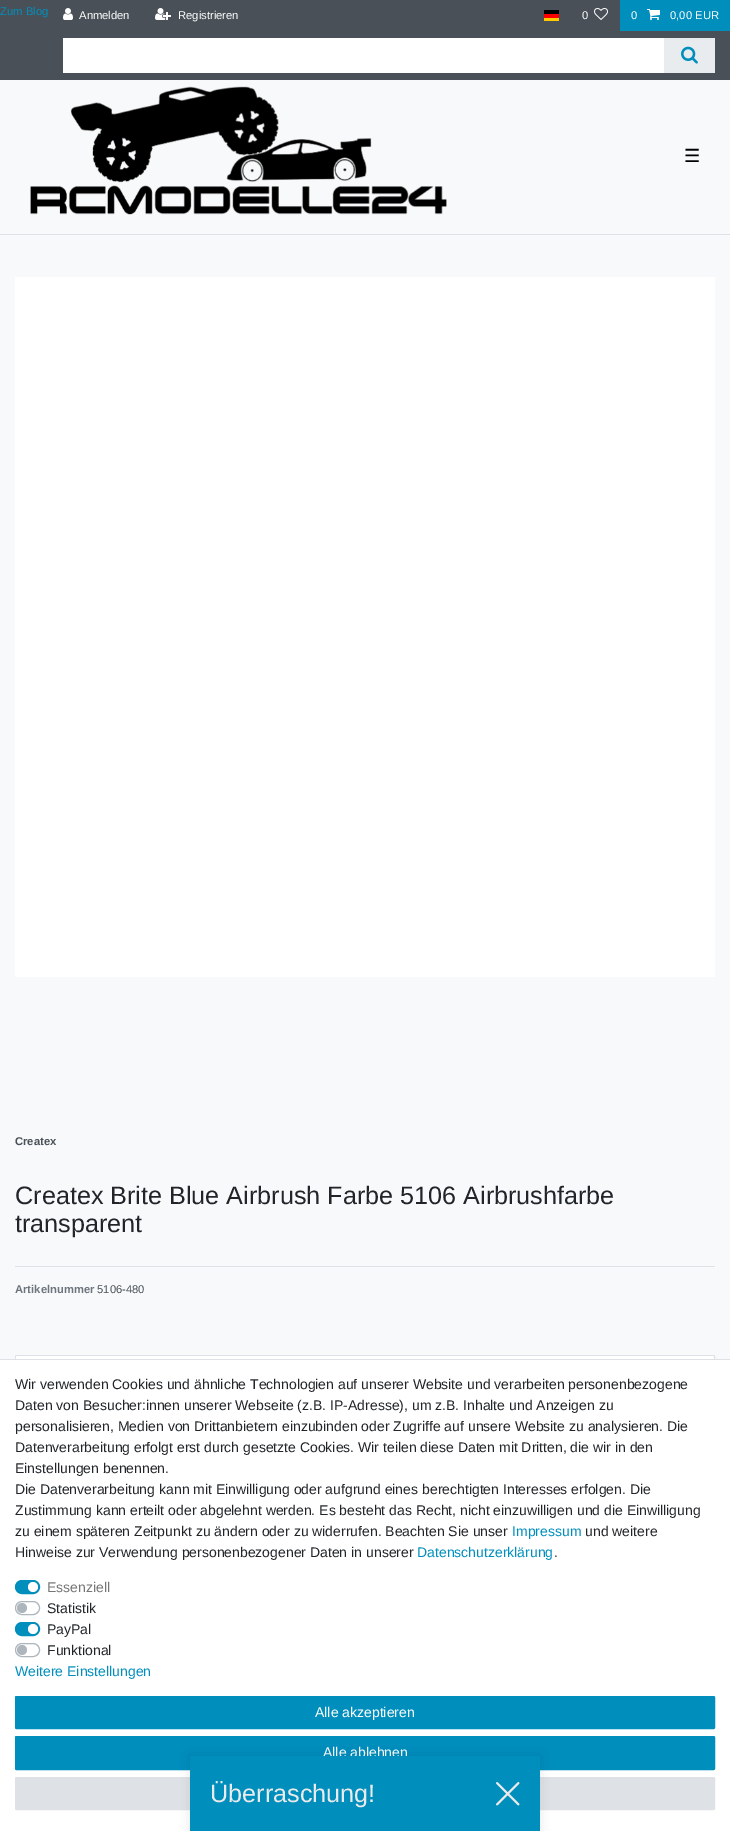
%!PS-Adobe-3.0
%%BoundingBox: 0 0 730 1831
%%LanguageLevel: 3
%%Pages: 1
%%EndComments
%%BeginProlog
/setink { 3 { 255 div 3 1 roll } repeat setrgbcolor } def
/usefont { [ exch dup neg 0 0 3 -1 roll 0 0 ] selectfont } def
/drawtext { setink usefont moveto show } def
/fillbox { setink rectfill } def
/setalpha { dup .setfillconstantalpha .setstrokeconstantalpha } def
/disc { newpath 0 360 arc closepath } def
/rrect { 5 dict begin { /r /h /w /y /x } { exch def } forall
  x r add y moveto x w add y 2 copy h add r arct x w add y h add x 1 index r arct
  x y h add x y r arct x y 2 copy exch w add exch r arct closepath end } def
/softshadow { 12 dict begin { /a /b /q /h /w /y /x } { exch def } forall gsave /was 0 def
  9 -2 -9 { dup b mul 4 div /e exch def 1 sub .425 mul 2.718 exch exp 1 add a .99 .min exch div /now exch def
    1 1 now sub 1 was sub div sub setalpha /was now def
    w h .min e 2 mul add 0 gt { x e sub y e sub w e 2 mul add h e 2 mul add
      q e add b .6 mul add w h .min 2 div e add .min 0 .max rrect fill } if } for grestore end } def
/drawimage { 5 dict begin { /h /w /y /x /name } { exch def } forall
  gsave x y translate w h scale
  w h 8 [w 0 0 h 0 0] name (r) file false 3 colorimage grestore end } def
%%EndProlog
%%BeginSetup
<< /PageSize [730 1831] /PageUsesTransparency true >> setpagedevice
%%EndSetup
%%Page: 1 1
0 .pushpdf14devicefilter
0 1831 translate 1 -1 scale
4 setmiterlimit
0 0 730 1831 248 249 250 fillbox
0 0 730 80 73 80 87 fillbox
(Zum Blog) 0 15 /LiberationSans-Regular 11.25 0 142 189 drawtext
(assets/img1.rgb) 63 8 10 12 drawimage
(Anmelden) 79 19 /LiberationSans-Regular 11.25 255 255 255 drawtext
(assets/img2.rgb) 155 8 16 12 drawimage
(Registrieren) 178 19 /LiberationSans-Regular 11.25 255 255 255 drawtext
544 18 15 3 255 204 0 fillbox
544 10 15 4 0 0 0 fillbox
544 14 15 4 255 0 0 fillbox
(0) 582 19 /LiberationSans-Regular 11.25 255 255 255 drawtext
(assets/img3.rgb) 594 8 14 12 drawimage
620 0 110 31 0 142 189 fillbox
(0) 631 19 /LiberationSans-Regular 11.25 255 255 255 drawtext
(assets/img4.rgb) 647 9 13 11 drawimage
(0,00 EUR) 670 19 /LiberationSans-Regular 11.25 255 255 255 drawtext
63 38 601 35 255 255 255 fillbox
664 38 51 35 233 236 239 fillbox
(assets/img5.rgb) 681 46 17 18 drawimage
0 234 730 1 222 226 230 fillbox
(assets/img6.rgb) 30 86 417 129 drawimage
(☰) 684 162 /DejaVuSans-Regular 18 0 0 0 drawtext
15 277 700 700 255 255 255 fillbox
(Createx) 15 1145 /LiberationSans-Bold 11.25 73 80 87 drawtext
(Createx Brite Blue Airbrush Farbe 5106 Airbrushfarbe) 15 1204 /LiberationSans-Regular 25.2 33 37 41 drawtext
(transparent) 15 1232 /LiberationSans-Regular 25.2 33 37 41 drawtext
15 1266 700 1 222 226 230 fillbox
(Artikelnummer) 15 1293 /LiberationSans-Bold 11.25 108 117 125 drawtext
(5106-480) 97 1293 /LiberationSans-Regular 11.25 73 80 87 drawtext
222 226 230 setink
15.5 1355.5 699 40 1 rrect stroke
255 255 255 setink
16 1356 698 39 1.5 rrect fill
0 1360 730 471 255 255 255 fillbox
0 1359 730 1 222 226 230 fillbox
(Wir verwenden Cookies und ähnliche Technologien auf unserer Website und verarbeiten personenbezogene) 15 1389 /LiberationSans-Regular 14 33 37 41 drawtext
(Daten von Besucher:innen unserer Webseite \(z.B. IP-Adresse\), um z.B. Inhalte und Anzeigen zu) 15 1410 /LiberationSans-Regular 14 33 37 41 drawtext
(personalisieren, Medien von Drittanbietern einzubinden oder Zugriffe auf unsere Website zu analysieren. Die) 15 1431 /LiberationSans-Regular 14 33 37 41 drawtext
(Datenverarbeitung erfolgt erst durch gesetzte Cookies. Wir teilen diese Daten mit Dritten, die wir in den) 15 1452 /LiberationSans-Regular 14 33 37 41 drawtext
(Einstellungen benennen.) 15 1473 /LiberationSans-Regular 14 33 37 41 drawtext
(Die Datenverarbeitung kann mit Einwilligung oder aufgrund eines berechtigten Interesses erfolgen. Die) 15 1494 /LiberationSans-Regular 14 33 37 41 drawtext
(Zustimmung kann erteilt oder abgelehnt werden. Es besteht das Recht, nicht einzuwilligen und die Einwilligung) 15 1515 /LiberationSans-Regular 14 33 37 41 drawtext
(zu einem späteren Zeitpunkt zu ändern oder zu widerrufen. Beachten Sie unser) 15 1536 /LiberationSans-Regular 14 33 37 41 drawtext
(Impressum) 512 1536 /LiberationSans-Regular 14 0 142 189 drawtext
(und weitere) 585 1536 /LiberationSans-Regular 14 33 37 41 drawtext
(Hinweise zur Verwendung personenbezogener Daten in unserer) 15 1557 /LiberationSans-Regular 14 33 37 41 drawtext
(Datenschutzerklärung) 417 1557 /LiberationSans-Regular 14 0 142 189 drawtext
(.) 554 1557 /LiberationSans-Regular 14 33 37 41 drawtext
0 142 189 setink
15.5 1580.5 24 13 6.5 rrect gsave fill grestore
stroke
(Essenziell) 47 1592 /LiberationSans-Regular 14 118 118 118 drawtext
255 255 255 setink
33 1587 5 disc fill
173 181 189 setink
15.5 1601.5 24 13 6.5 rrect stroke
(Statistik) 47 1613 /LiberationSans-Regular 14 33 37 41 drawtext
173 181 189 setink
22 1608 5 disc fill
0 142 189 setink
15.5 1622.5 24 13 6.5 rrect gsave fill grestore
stroke
(PayPal) 47 1634 /LiberationSans-Regular 14 33 37 41 drawtext
255 255 255 setink
33 1629 5 disc fill
173 181 189 setink
15.5 1643.5 24 13 6.5 rrect stroke
(Funktional) 47 1655 /LiberationSans-Regular 14 33 37 41 drawtext
173 181 189 setink
22 1650 5 disc fill
(Weitere Einstellungen) 15 1676 /LiberationSans-Regular 14 0 142 189 drawtext
15.5 1696.5 699 32 1 rrect gsave fill grestore
stroke
(Alle akzeptieren) 315 1717 /LiberationSans-Regular 14 255 255 255 drawtext
0 142 189 setink
15.5 1736.5 699 33 1 rrect gsave fill grestore
stroke
(Alle ablehnen) 323 1757 /LiberationSans-Regular 14 255 255 255 drawtext
222 226 230 setink
15.5 1777.5 699 32 1 rrect gsave fill grestore
stroke
gsave
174 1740 moveto 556 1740 lineto 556 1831 lineto 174 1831 lineto closepath 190 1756 moveto 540 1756 lineto 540 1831 lineto 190 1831 lineto closepath eoclip newpath
0 0 0 setink
190 1756 350 75 0 5 0.1 softshadow
grestore
0 142 189 setink
200 1756 moveto 530 1756 lineto 535.5 1756 540 1760.5 540 1766 curveto 540 1831 lineto 190 1831 lineto 190 1766 lineto 190 1760.5 194.5 1756 200 1756 curveto closepath fill
(Überraschung!) 210 1802 /LiberationSans-Regular 25.2 235 235 235 drawtext
(assets/img7.rgb) 496 1782 24 24 drawimage
.poppdf14devicefilter showpage
%%EOF
